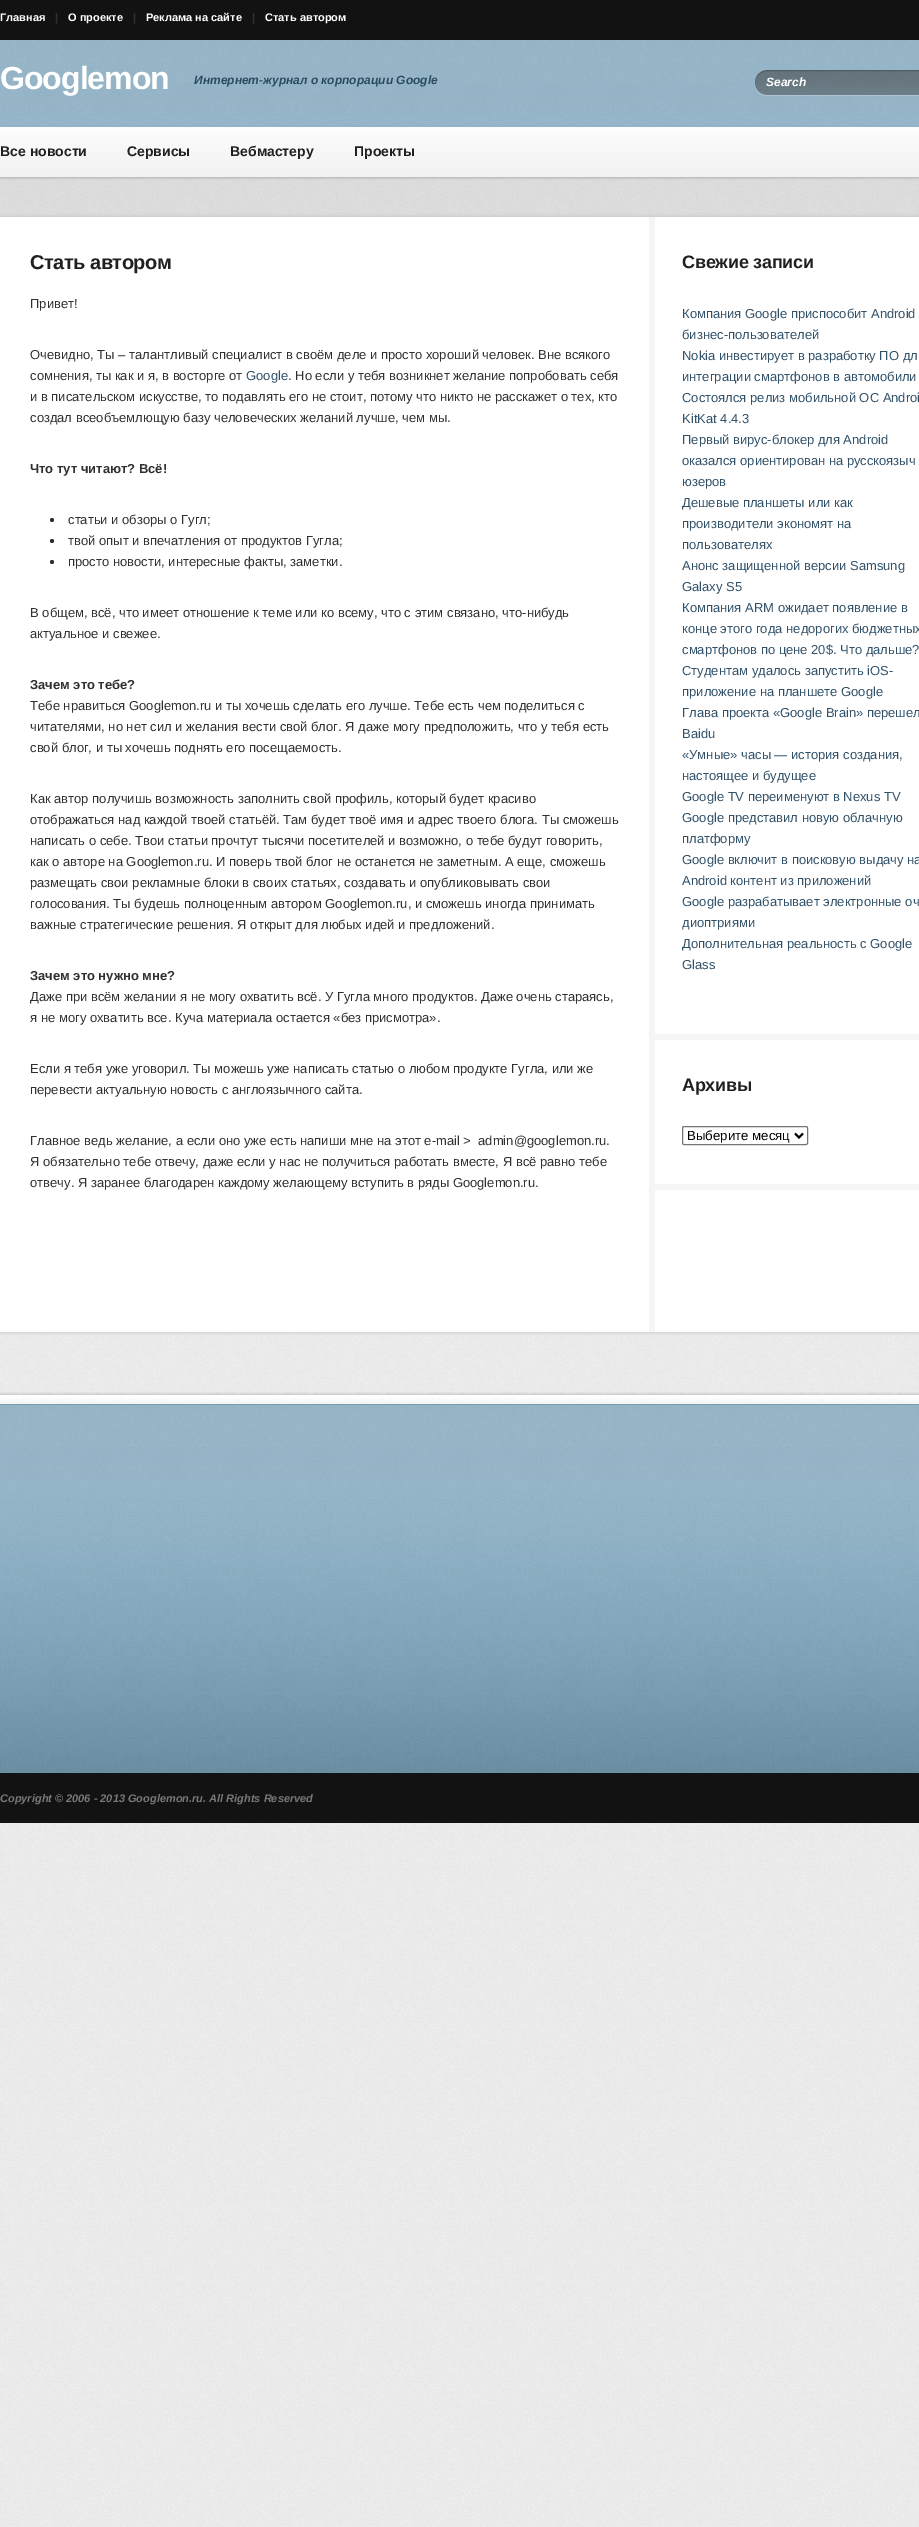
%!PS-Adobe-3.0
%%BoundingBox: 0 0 919 2527
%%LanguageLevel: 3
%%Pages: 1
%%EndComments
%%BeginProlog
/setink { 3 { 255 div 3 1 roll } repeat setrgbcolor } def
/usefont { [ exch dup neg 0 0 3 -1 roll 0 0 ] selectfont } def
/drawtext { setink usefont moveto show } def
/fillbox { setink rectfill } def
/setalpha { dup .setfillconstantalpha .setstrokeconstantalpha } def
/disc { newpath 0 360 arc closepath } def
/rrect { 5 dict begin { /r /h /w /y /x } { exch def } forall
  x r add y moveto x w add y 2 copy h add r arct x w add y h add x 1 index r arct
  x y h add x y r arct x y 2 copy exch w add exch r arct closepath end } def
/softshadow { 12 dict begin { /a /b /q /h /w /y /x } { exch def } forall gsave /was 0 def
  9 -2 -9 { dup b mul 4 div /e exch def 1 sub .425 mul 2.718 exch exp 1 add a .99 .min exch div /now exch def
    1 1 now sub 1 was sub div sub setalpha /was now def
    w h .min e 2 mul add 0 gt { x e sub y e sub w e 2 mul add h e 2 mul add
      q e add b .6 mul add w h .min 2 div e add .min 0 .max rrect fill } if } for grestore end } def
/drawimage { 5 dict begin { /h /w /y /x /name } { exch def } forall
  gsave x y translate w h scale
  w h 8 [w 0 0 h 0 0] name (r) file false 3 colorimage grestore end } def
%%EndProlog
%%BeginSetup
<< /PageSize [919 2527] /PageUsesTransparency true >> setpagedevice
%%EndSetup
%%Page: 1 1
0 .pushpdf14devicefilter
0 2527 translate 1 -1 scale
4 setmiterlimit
0 0 919 2527 255 255 255 fillbox
(assets/img1.rgb) 0 177 919 2350 drawimage
0 0 919 40 18 18 18 fillbox
(Главная) 0 21 /LiberationSans-Bold 11 255 255 255 drawtext
(|) 55 21 /LiberationSans-Bold 11 48 48 48 drawtext
(О проекте) 68 21 /LiberationSans-Bold 11 255 255 255 drawtext
(|) 133 21 /LiberationSans-Bold 11 48 48 48 drawtext
(Реклама на сайте) 146 21 /LiberationSans-Bold 11 255 255 255 drawtext
(|) 252 21 /LiberationSans-Bold 11 48 48 48 drawtext
(Стать автором) 265 21 /LiberationSans-Bold 11 255 255 255 drawtext
(assets/img2.rgb) 0 40 919 87 drawimage
/LiberationSans-Bold 32 usefont
0 89 moveto -1 0 (Googlemon) ashow
(Интернет-журнал о корпорации Google) 194 84 /LiberationSans-BoldItalic 12 42 74 98 drawtext
(assets/img3.rgb) 754 70 165 26 drawimage
(Search) 766 86 /LiberationSans-BoldItalic 12 255 255 255 drawtext
(assets/img4.rgb) 0 127 919 53 drawimage
(Все новости) 0 156 /LiberationSans-Bold 14 32 32 32 drawtext
(Сервисы) 127 156 /LiberationSans-Bold 14 32 32 32 drawtext
(Вебмастеру) 230 156 /LiberationSans-Bold 14 32 32 32 drawtext
(Проекты) 354 156 /LiberationSans-Bold 14 32 32 32 drawtext
(assets/img5.rgb) 0 177 919 40 drawimage
187 187 187 setink
0 217 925 1115 0 2 1 softshadow
0 217 919 1115 255 255 255 fillbox
649 217 6 1115 245 245 245 fillbox
/LiberationSans-Bold 20 usefont
32 32 32 setink
30 269 moveto -0.5 0 (Стать автором) ashow
(Привет!) 30 308 /LiberationSans-Regular 13 48 48 48 drawtext
(Очевидно, Ты – талантливый специалист в своём деле и просто хороший человек. Вне всякого) 30 359 /LiberationSans-Regular 13 48 48 48 drawtext
(сомнения, ты как и я, в восторге от) 30 380 /LiberationSans-Regular 13 48 48 48 drawtext
(Google) 246 380 /LiberationSans-Regular 13 49 81 105 drawtext
(. Но если у тебя возникнет желание попробовать себя) 288 380 /LiberationSans-Regular 13 48 48 48 drawtext
(и в писательском искусстве, то подавлять его не стоит, потому что никто не расскажет о тех, кто) 30 401 /LiberationSans-Regular 13 48 48 48 drawtext
(создал всеобъемлющую базу человеческих желаний лучше, чем мы.) 30 422 /LiberationSans-Regular 13 48 48 48 drawtext
(Что тут читают? Всё!) 30 473 /LiberationSans-Bold 13 48 48 48 drawtext
52 520 2 disc fill
(статьи и обзоры o Гугл;) 68 524 /LiberationSans-Regular 13 48 48 48 drawtext
52 541 2 disc fill
(твой опыт и впечатления от продуктов Гугла;) 68 545 /LiberationSans-Regular 13 48 48 48 drawtext
52 562 2 disc fill
(просто новости, интересные факты, заметки.) 68 566 /LiberationSans-Regular 13 48 48 48 drawtext
(В общем, всё, что имеет отношение к теме или ко всему, что с этим связано, что-нибудь) 30 617 /LiberationSans-Regular 13 48 48 48 drawtext
(актуальное и свежее.) 30 638 /LiberationSans-Regular 13 48 48 48 drawtext
(Зачем это тебе?) 30 689 /LiberationSans-Bold 13 48 48 48 drawtext
(Тебе нравиться Googlemon.ru и ты хочешь сделать его лучше. Тебе есть чем поделиться с) 30 710 /LiberationSans-Regular 13 48 48 48 drawtext
(читателями, но нет сил и желания вести свой блог. Я даже могу предположить, что у тебя есть) 30 731 /LiberationSans-Regular 13 48 48 48 drawtext
(свой блог, и ты хочешь поднять его посещаемость.) 30 752 /LiberationSans-Regular 13 48 48 48 drawtext
(Как автор получишь возможность заполнить свой профиль, который будет красиво) 30 803 /LiberationSans-Regular 13 48 48 48 drawtext
(отображаться над каждой твоей статьёй. Там будет твоё имя и адрес твоего блога. Ты сможешь) 30 824 /LiberationSans-Regular 13 48 48 48 drawtext
(написать о себе. Твои статьи прочтут тысячи посетителей и возможно, о тебе будут говорить,) 30 845 /LiberationSans-Regular 13 48 48 48 drawtext
(как о авторе на Googlemon.ru. И поверь твой блог не останется не заметным. А еще, сможешь) 30 866 /LiberationSans-Regular 13 48 48 48 drawtext
(размещать свои рекламные блоки в своих статьях, создавать и опубликовывать свои) 30 887 /LiberationSans-Regular 13 48 48 48 drawtext
(голосования. Ты будешь полноценным автором Googlemon.ru, и сможешь иногда принимать) 30 908 /LiberationSans-Regular 13 48 48 48 drawtext
(важные стратегические решения. Я открыт для любых идей и предложений.) 30 929 /LiberationSans-Regular 13 48 48 48 drawtext
(Зачем это нужно мне?) 30 980 /LiberationSans-Bold 13 48 48 48 drawtext
(Даже при всём желании я не могу охватить всё. У Гугла много продуктов. Даже очень стараясь,) 30 1001 /LiberationSans-Regular 13 48 48 48 drawtext
(я не могу охватить все. Куча материала остается «без присмотра».) 30 1022 /LiberationSans-Regular 13 48 48 48 drawtext
(Если я тебя уже уговорил. Ты можешь уже написать статью о любом продукте Гугла, или же) 30 1073 /LiberationSans-Regular 13 48 48 48 drawtext
(перевести актуальную новость с англоязычного сайта.) 30 1094 /LiberationSans-Regular 13 48 48 48 drawtext
(Главное ведь желание, а если оно уже есть напиши мне на этот e-mail >  admin@googlemon.ru.) 30 1145 /LiberationSans-Regular 13 48 48 48 drawtext
(Я обязательно тебе отвечу, даже если у нас не получиться работать вместе, Я всё равно тебе) 30 1166 /LiberationSans-Regular 13 48 48 48 drawtext
(отвечу. Я заранее благодарен каждому желающему вступить в ряды Googlemon.ru.) 30 1187 /LiberationSans-Regular 13 48 48 48 drawtext
650 1034 269 6 245 245 245 fillbox
/LiberationSans-Bold 18 usefont
32 32 32 setink
682 268 moveto -0.25 0 (Свежие записи) ashow
(Компания Google приспособит Android) 682 318 /LiberationSans-Regular 13 49 81 105 drawtext
(бизнес-пользователей) 682 339 /LiberationSans-Regular 13 49 81 105 drawtext
(Nokia инвестирует в разработку ПО дл) 682 360 /LiberationSans-Regular 13 49 81 105 drawtext
(интеграции смартфонов в автомобили) 682 381 /LiberationSans-Regular 13 49 81 105 drawtext
(Состоялся релиз мобильной ОС Androi) 682 402 /LiberationSans-Regular 13 49 81 105 drawtext
(KitKat 4.4.3) 682 423 /LiberationSans-Regular 13 49 81 105 drawtext
(Первый вирус-блокер для Android) 682 444 /LiberationSans-Regular 13 49 81 105 drawtext
(оказался ориентирован на русскоязыч) 682 465 /LiberationSans-Regular 13 49 81 105 drawtext
(юзеров) 682 486 /LiberationSans-Regular 13 49 81 105 drawtext
(Дешевые планшеты или как) 682 507 /LiberationSans-Regular 13 49 81 105 drawtext
(производители экономят на) 682 528 /LiberationSans-Regular 13 49 81 105 drawtext
(пользователях) 682 549 /LiberationSans-Regular 13 49 81 105 drawtext
(Анонс защищенной версии Samsung) 682 570 /LiberationSans-Regular 13 49 81 105 drawtext
(Galaxy S5) 682 591 /LiberationSans-Regular 13 49 81 105 drawtext
(Компания ARM ожидает появление в) 682 612 /LiberationSans-Regular 13 49 81 105 drawtext
(конце этого года недорогих бюджетных) 682 633 /LiberationSans-Regular 13 49 81 105 drawtext
(смартфонов по цене 20$. Что дальше?) 682 654 /LiberationSans-Regular 13 49 81 105 drawtext
(Студентам удалось запустить iOS-) 682 675 /LiberationSans-Regular 13 49 81 105 drawtext
(приложение на планшете Google) 682 696 /LiberationSans-Regular 13 49 81 105 drawtext
(Глава проекта «Google Brain» перешел) 682 717 /LiberationSans-Regular 13 49 81 105 drawtext
(Baidu) 682 738 /LiberationSans-Regular 13 49 81 105 drawtext
(«Умные» часы — история создания,) 682 759 /LiberationSans-Regular 13 49 81 105 drawtext
(настоящее и будущее) 682 780 /LiberationSans-Regular 13 49 81 105 drawtext
(Google TV переименуют в Nexus TV) 682 801 /LiberationSans-Regular 13 49 81 105 drawtext
(Googlе представил новую облачную) 682 822 /LiberationSans-Regular 13 49 81 105 drawtext
(платформу) 682 843 /LiberationSans-Regular 13 49 81 105 drawtext
(Google включит в поисковую выдачу на) 682 864 /LiberationSans-Regular 13 49 81 105 drawtext
(Android контент из приложений) 682 885 /LiberationSans-Regular 13 49 81 105 drawtext
(Google разрабатывает электронные оч) 682 906 /LiberationSans-Regular 13 49 81 105 drawtext
(диоптриями) 682 927 /LiberationSans-Regular 13 49 81 105 drawtext
(Дополнительная реальность с Google) 682 948 /LiberationSans-Regular 13 49 81 105 drawtext
(Glass) 682 969 /LiberationSans-Regular 13 49 81 105 drawtext
650 1184 269 6 245 245 245 fillbox
/LiberationSans-Bold 18 usefont
32 32 32 setink
682 1091 moveto -0.25 0 (Архивы) ashow
118 118 118 setink
682.5 1126.5 125 18 1.5 rrect stroke
0 0 0 setink
2 setlinewidth
795 1133.5 moveto 799 1137.5 lineto 803 1133.5 lineto stroke
(Выберите месяц) 687 1140 /LiberationSans-Regular 13.25 0 0 0 drawtext
(assets/img6.rgb) 0 1392 919 381 drawimage
0 1773 919 50 18 18 18 fillbox
(Copyright © 2006 - 2013 Googlemon.ru. All Rights Reserved) 0 1802 /LiberationSans-BoldItalic 11 119 119 119 drawtext
.poppdf14devicefilter showpage
%%EOF
